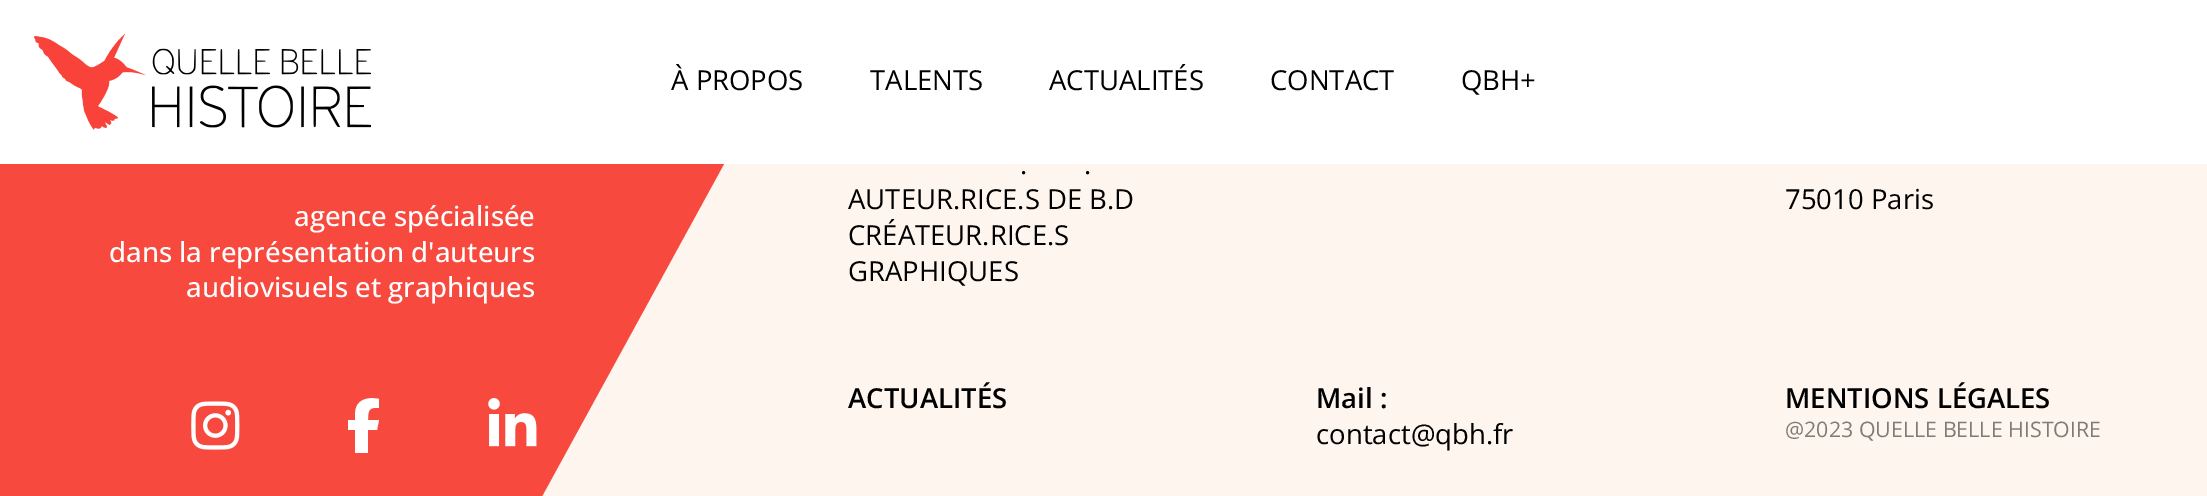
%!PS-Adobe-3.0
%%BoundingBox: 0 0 2207 496
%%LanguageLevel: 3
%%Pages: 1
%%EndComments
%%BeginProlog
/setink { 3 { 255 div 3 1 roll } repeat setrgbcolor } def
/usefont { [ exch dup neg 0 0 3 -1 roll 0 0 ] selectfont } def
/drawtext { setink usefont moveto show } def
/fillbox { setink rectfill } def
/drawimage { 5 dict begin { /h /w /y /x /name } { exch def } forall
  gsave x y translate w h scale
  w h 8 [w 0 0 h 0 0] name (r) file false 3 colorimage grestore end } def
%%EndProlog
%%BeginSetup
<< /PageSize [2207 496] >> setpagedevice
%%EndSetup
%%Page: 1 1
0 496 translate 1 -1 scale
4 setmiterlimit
0 0 2207 496 254 246 238 fillbox
248 73 63 setink
385 -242 moveto -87 -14 lineto -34 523 lineto 471 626 lineto 730 153 lineto closepath fill
0 0 2207 164 255 255 255 fillbox
(assets/img1.rgb) 34 34 337 96 drawimage
(À PROPOS) 671 90 /OpenSans-Regular 27.5 0 0 0 drawtext
(TALENTS) 870 90 /OpenSans-Regular 27.5 0 0 0 drawtext
(ACTUALITÉS) 1049 90 /OpenSans-Regular 27.5 0 0 0 drawtext
(CONTACT) 1270 90 /OpenSans-Regular 27.5 0 0 0 drawtext
(QBH+) 1461 90 /OpenSans-Regular 27.5 0 0 0 drawtext
(agence spécialisée) 294 226 /OpenSans-Medium 27.5 255 255 255 drawtext
(dans la représentation d'auteurs) 109 262 /OpenSans-Medium 27.5 255 255 255 drawtext
(audiovisuels et graphiques) 186 297 /OpenSans-Medium 27.5 255 255 255 drawtext
(assets/img2.rgb) 191 401 49 49 drawimage
355 430 moveto 355 453 lineto 368 453 lineto 368 430 lineto 377 430 lineto 379 420 lineto 368 420 lineto 368 410 369 407 379 408 curveto 379 399 lineto 371 397 359 398 356 408 curveto 355 411 355 416 355 420 curveto 348 420 lineto 348 430 lineto closepath fill
(assets/img3.rgb) 488 398 49 49 drawimage
(.) 1020 174 /OpenSans-Regular 27.5 0 0 0 drawtext
(.) 1084 174 /OpenSans-Regular 27.5 0 0 0 drawtext
(AUTEUR.RICE.S DE B.D) 848 209 /OpenSans-Regular 27.5 0 0 0 drawtext
(CRÉATEUR.RICE.S) 848 245 /OpenSans-Regular 27.5 0 0 0 drawtext
(GRAPHIQUES) 848 281 /OpenSans-Regular 27.5 0 0 0 drawtext
(75010 Paris) 1785 209 /OpenSans-Regular 27.5 0 0 0 drawtext
(ACTUALITÉS) 848 408 /OpenSans-SemiBold 27.5 0 0 0 drawtext
(Mail :) 1316 408 /OpenSans-SemiBold 27.5 0 0 0 drawtext
(contact@qbh.fr) 1316 444 /OpenSans-Regular 27.5 0 0 0 drawtext
(MENTIONS LÉGALES) 1785 408 /OpenSans-SemiBold 27.5 0 0 0 drawtext
(@2023 QUELLE BELLE HISTOIRE) 1785 437 /OpenSans-Regular 21.4 127 123 119 drawtext
showpage
%%EOF
